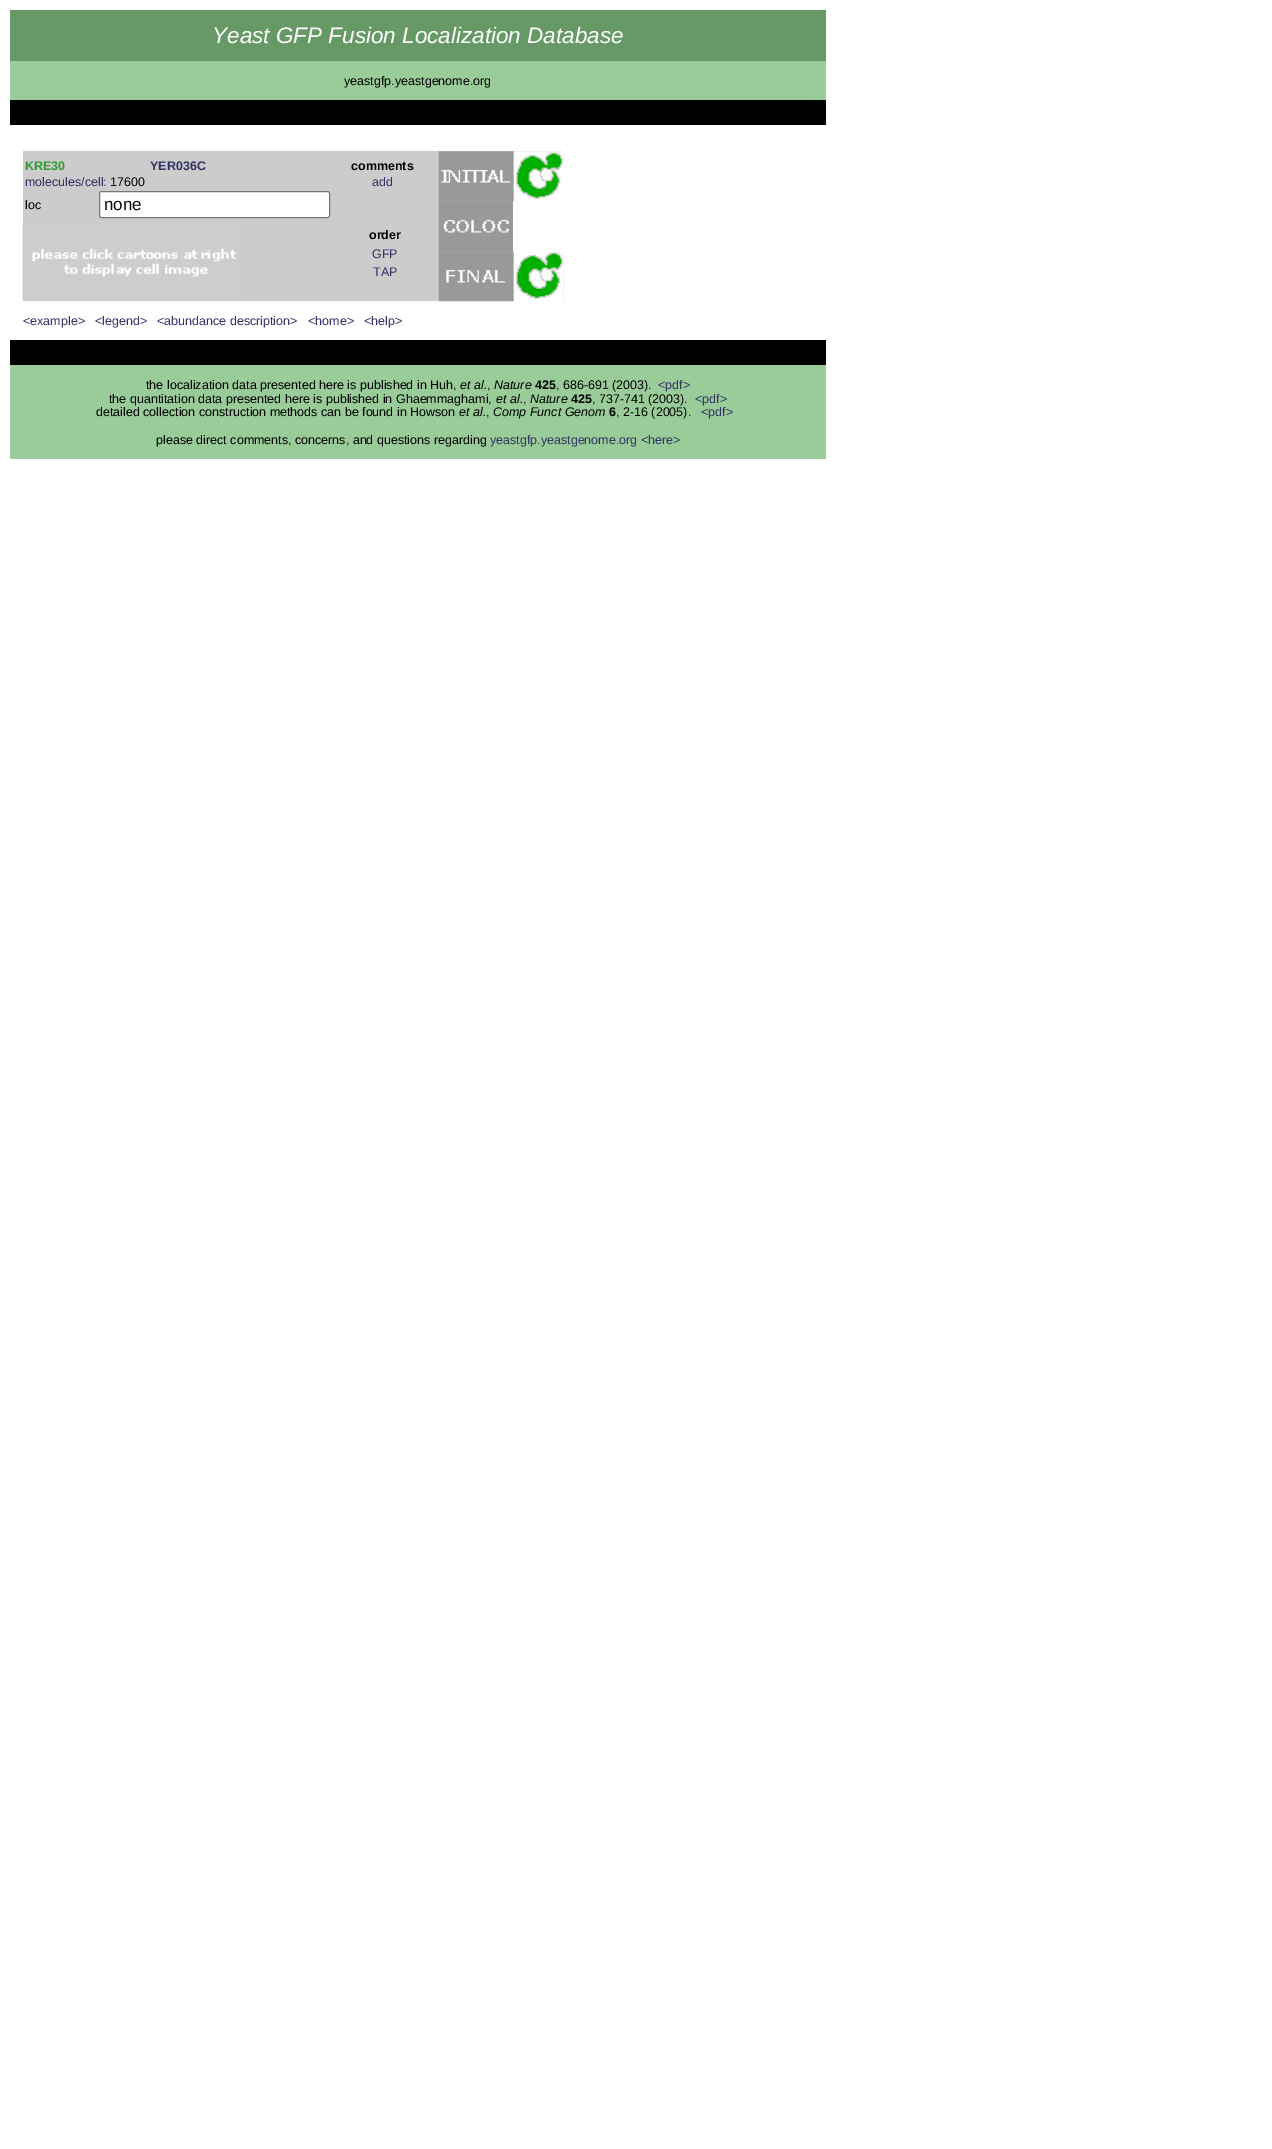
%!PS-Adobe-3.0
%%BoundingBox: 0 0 1272 2149
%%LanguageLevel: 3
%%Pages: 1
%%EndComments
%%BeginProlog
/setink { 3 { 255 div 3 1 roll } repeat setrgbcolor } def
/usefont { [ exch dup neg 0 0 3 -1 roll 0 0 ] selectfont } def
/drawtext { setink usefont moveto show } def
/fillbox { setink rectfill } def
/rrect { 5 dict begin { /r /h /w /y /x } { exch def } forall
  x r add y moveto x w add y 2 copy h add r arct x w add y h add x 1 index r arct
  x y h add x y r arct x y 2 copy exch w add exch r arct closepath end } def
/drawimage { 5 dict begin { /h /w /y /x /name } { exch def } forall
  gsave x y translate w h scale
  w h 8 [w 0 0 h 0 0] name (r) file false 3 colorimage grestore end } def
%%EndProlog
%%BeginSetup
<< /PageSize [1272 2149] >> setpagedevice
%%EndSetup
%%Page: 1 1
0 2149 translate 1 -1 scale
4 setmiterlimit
0 0 1272 2149 255 255 255 fillbox
10 10 816 51 102 153 102 fillbox
(Yeast GFP Fusion Localization Database) 212 43 /LiberationSans-Italic 22.5 255 255 255 drawtext
10 61 816 39 153 204 153 fillbox
(yeastgfp.yeastgenome.org) 344 85 /LiberationSans-Regular 12.5 0 0 0 drawtext
10 100 816 25 0 0 0 fillbox
23 151 541 150 204 204 204 fillbox
(KRE30) 25 170 /LiberationSans-Bold 12.5 51 153 51 drawtext
(YER036C) 150 170 /LiberationSans-Bold 12.5 51 51 102 drawtext
(comments) 351 170 /LiberationSans-Bold 12.5 0 0 0 drawtext
(molecules/cell:) 25 186 /LiberationSans-Regular 12.5 51 51 102 drawtext
(17600) 110 186 /LiberationSans-Regular 12.5 0 0 0 drawtext
(add) 372 186 /LiberationSans-Regular 12.5 51 51 102 drawtext
(loc) 25 209 /LiberationSans-Regular 12.5 0 0 0 drawtext
255 255 255 setink
99.5 191.5 230 26 2 rrect gsave fill grestore
118 118 118 setink
stroke
(none) 104 210 /LiberationSans-Regular 17 0 0 0 drawtext
(assets/img1.rgb) 438 151 76 51 drawimage
(assets/img2.rgb) 513 151 50 50 drawimage
563 151 1 51 255 255 255 fillbox
(assets/img3.rgb) 22 225 215 75 drawimage
(order) 369 239 /LiberationSans-Bold 12.5 0 0 0 drawtext
(GFP) 372 258 /LiberationSans-Regular 12.5 51 51 102 drawtext
(TAP) 373 276 /LiberationSans-Regular 12.5 51 51 102 drawtext
(assets/img4.rgb) 438 201 75 51 drawimage
513 201 51 51 255 255 255 fillbox
(assets/img5.rgb) 438 251 76 51 drawimage
(assets/img6.rgb) 513 251 51 50 drawimage
(<example>) 23 325 /LiberationSans-Regular 12.5 51 51 102 drawtext
(<legend>) 95 325 /LiberationSans-Regular 12.5 51 51 102 drawtext
(<abundance description>) 157 325 /LiberationSans-Regular 12.5 51 51 102 drawtext
(<home>) 308 325 /LiberationSans-Regular 12.5 51 51 102 drawtext
(<help>) 364 325 /LiberationSans-Regular 12.5 51 51 102 drawtext
10 340 816 25 0 0 0 fillbox
10 365 816 94 153 204 153 fillbox
(the localization data presented here is published in Huh,) 146 389 /LiberationSans-Regular 12.5 0 0 0 drawtext
(et al.) 460 389 /LiberationSans-Italic 12.5 0 0 0 drawtext
(,) 487 389 /LiberationSans-Regular 12.5 0 0 0 drawtext
(Nature) 494 389 /LiberationSans-Italic 12.5 0 0 0 drawtext
(425) 535 389 /LiberationSans-Bold 12.5 0 0 0 drawtext
(, 686-691 \(2003\).) 556 389 /LiberationSans-Regular 12.5 0 0 0 drawtext
(<pdf>) 658 389 /LiberationSans-Regular 12.5 51 51 102 drawtext
(the quantitation data presented here is published in Ghaemmaghami,) 109 403 /LiberationSans-Regular 12.5 0 0 0 drawtext
(et al.) 496 403 /LiberationSans-Italic 12.5 0 0 0 drawtext
(,) 523 403 /LiberationSans-Regular 12.5 0 0 0 drawtext
(Nature) 530 403 /LiberationSans-Italic 12.5 0 0 0 drawtext
(425) 571 403 /LiberationSans-Bold 12.5 0 0 0 drawtext
(, 737-741 \(2003\).) 592 403 /LiberationSans-Regular 12.5 0 0 0 drawtext
(<pdf>) 695 403 /LiberationSans-Regular 12.5 51 51 102 drawtext
(detailed collection construction methods can be found in Howson) 96 416 /LiberationSans-Regular 12.5 0 0 0 drawtext
(et al.) 459 416 /LiberationSans-Italic 12.5 0 0 0 drawtext
(,) 486 416 /LiberationSans-Regular 12.5 0 0 0 drawtext
(Comp Funct Genom) 493 416 /LiberationSans-Italic 12.5 0 0 0 drawtext
(6) 609 416 /LiberationSans-Bold 12.5 0 0 0 drawtext
(, 2-16 \(2005\).) 616 416 /LiberationSans-Regular 12.5 0 0 0 drawtext
(<pdf>) 701 416 /LiberationSans-Regular 12.5 51 51 102 drawtext
(please direct comments, concerns, and questions regarding) 156 444 /LiberationSans-Regular 12.5 0 0 0 drawtext
(yeastgfp.yeastgenome.org <here>) 490 444 /LiberationSans-Regular 12.5 51 51 102 drawtext
showpage
%%EOF
